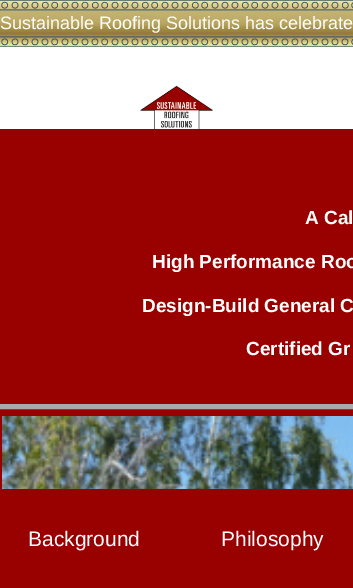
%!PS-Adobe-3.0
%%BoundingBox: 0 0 353 588
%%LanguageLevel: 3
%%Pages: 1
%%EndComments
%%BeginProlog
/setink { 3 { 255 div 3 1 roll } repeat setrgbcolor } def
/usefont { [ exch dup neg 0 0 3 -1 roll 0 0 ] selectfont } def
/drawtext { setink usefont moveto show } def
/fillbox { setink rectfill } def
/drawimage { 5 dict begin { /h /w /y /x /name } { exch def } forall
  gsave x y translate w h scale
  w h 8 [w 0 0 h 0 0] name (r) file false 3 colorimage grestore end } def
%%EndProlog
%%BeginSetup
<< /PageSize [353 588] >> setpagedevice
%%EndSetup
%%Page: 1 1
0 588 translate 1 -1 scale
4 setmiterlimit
0 0 353 588 153 0 0 fillbox
(assets/img1.rgb) 0 0 353 47 drawimage
(Sustainable Roofing Solutions has celebrate) 0 29 /LiberationSans-Regular 18 255 255 255 drawtext
0 47 353 82 255 255 255 fillbox
(assets/img2.rgb) 140 85 73 44 drawimage
(A Cal) 305 224 /LiberationSans-Bold 19 255 255 255 drawtext
(High Performance Roo) 152 268 /LiberationSans-Bold 19 255 255 255 drawtext
(Design-Build General C) 142 312 /LiberationSans-Bold 19 255 255 255 drawtext
(Certified Gr) 246 355 /LiberationSans-Bold 19 255 255 255 drawtext
170 170 170 setink
5 setlinewidth
-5.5 408.5 moveto -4 407.5 -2 406.5 0 406.5 curveto 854 406.5 lineto 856 406.5 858 407.5 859.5 408.5 curveto stroke
(assets/img3.rgb) 2 416 351 73 drawimage
(Background) 28 546 /LiberationSans-Regular 21 255 255 255 drawtext
(Philosophy) 221 546 /LiberationSans-Regular 21 255 255 255 drawtext
showpage
%%EOF
